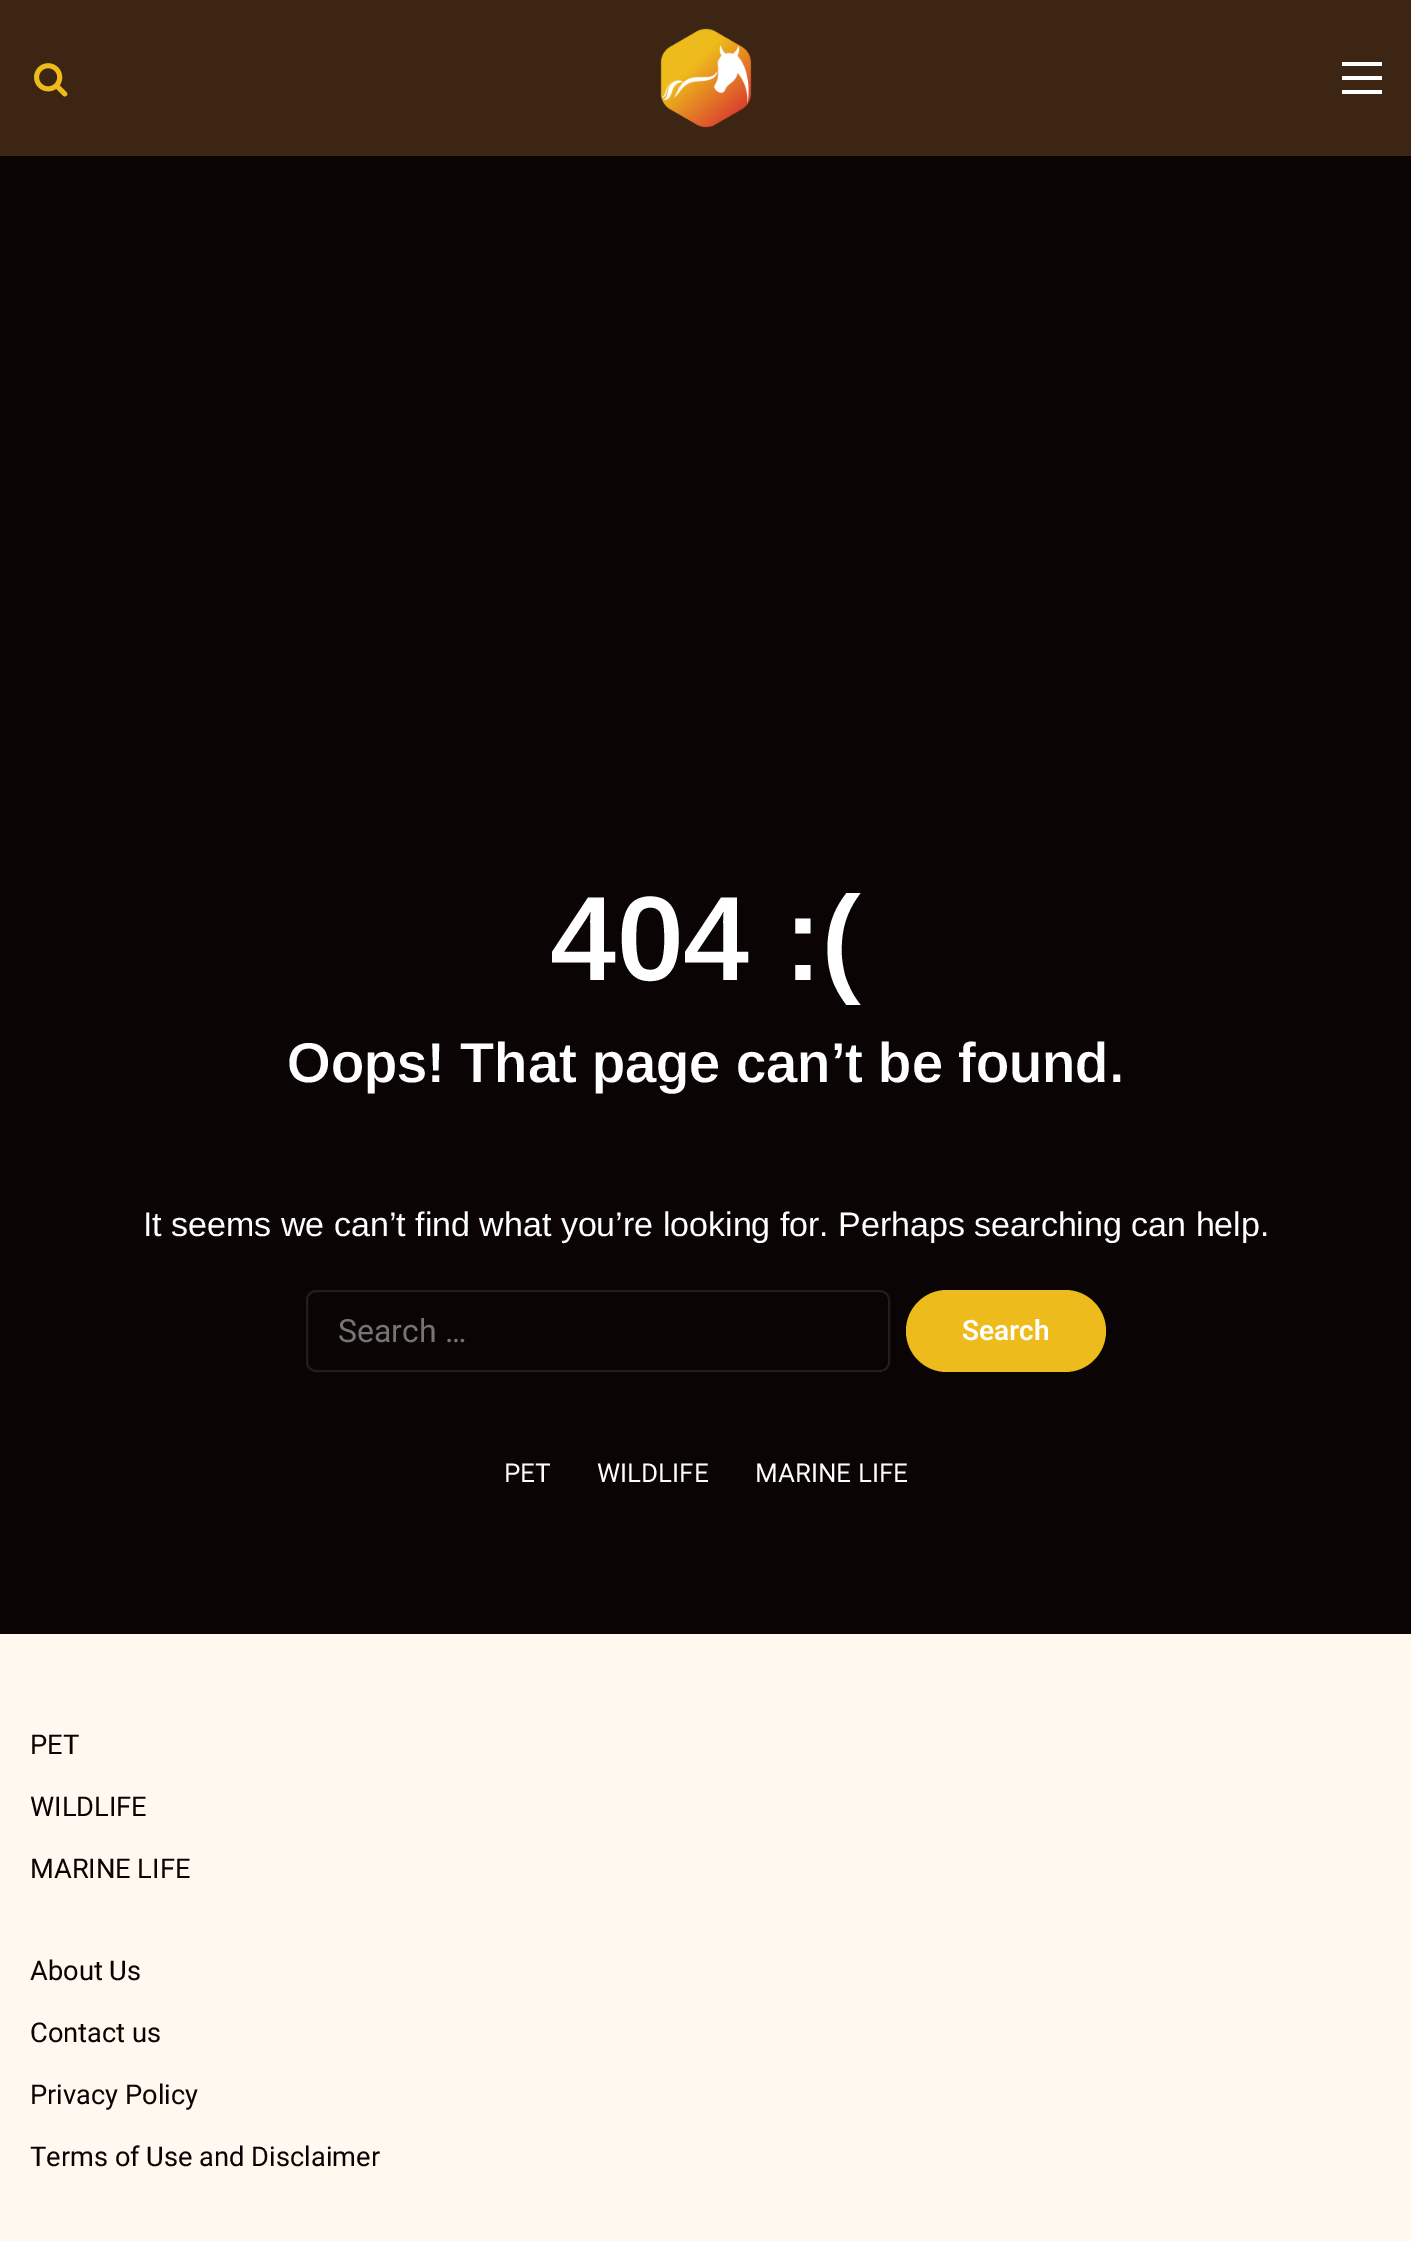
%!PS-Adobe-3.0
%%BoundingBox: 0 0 1411 2241
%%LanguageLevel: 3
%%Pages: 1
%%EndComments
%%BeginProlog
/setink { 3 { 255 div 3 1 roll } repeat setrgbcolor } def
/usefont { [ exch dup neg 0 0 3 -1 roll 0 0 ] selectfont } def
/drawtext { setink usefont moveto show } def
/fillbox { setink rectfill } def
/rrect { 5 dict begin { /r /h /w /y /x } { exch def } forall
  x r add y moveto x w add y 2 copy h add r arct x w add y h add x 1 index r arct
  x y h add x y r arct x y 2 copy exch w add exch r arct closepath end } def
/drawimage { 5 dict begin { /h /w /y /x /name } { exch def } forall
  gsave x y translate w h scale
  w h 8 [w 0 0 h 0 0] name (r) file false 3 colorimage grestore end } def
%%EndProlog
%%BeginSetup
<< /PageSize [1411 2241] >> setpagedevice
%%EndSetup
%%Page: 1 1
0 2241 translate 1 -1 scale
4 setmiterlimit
0 0 1411 2241 10 4 4 fillbox
0 0 1411 156 60 37 18 fillbox
(assets/img1.rgb) 34 63 34 34 drawimage
(assets/img2.rgb) 660 28 92 100 drawimage
1342 76 40 4 255 255 255 fillbox
1342 62 40 4 255 255 255 fillbox
1342 90 40 4 255 255 255 fillbox
(404 :\() 550 980 /Arimo-SemiBold 120 255 255 255 drawtext
(Oops! That page can’t be found.) 287 1082 /Arimo-SemiBold 56 255 255 255 drawtext
(It seems we can’t find what you’re looking for. Perhaps searching can help.) 143 1236 /Arimo-Regular 34 255 255 255 drawtext
35 29 29 setink
2 setlinewidth
307 1291 582 80 9 rrect stroke
(Search …) 338 1342 /Roboto-Regular 32 117 117 117 drawtext
238 187 28 setink
906 1290 200 82 41 rrect fill
(Search) 962 1340 /Roboto-SemiBold 28 255 255 255 drawtext
(PET) 504 1482 /Roboto-Regular 26 255 255 255 drawtext
(WILDLIFE) 597 1482 /Roboto-Regular 26 255 255 255 drawtext
(MARINE LIFE) 755 1482 /Roboto-Regular 26 255 255 255 drawtext
0 1634 1411 607 255 249 240 fillbox
(PET) 30 1754 /Roboto-Regular 27.25 12 2 2 drawtext
(WILDLIFE) 30 1816 /Roboto-Regular 27.25 12 2 2 drawtext
(MARINE LIFE) 30 1878 /Roboto-Regular 27.25 12 2 2 drawtext
(About Us) 30 1980 /Roboto-Regular 27.25 12 2 2 drawtext
(Contact us) 30 2042 /Roboto-Regular 27.25 12 2 2 drawtext
(Privacy Policy) 30 2104 /Roboto-Regular 27.25 12 2 2 drawtext
(Terms of Use and Disclaimer) 30 2166 /Roboto-Regular 27.25 12 2 2 drawtext
showpage
%%EOF
